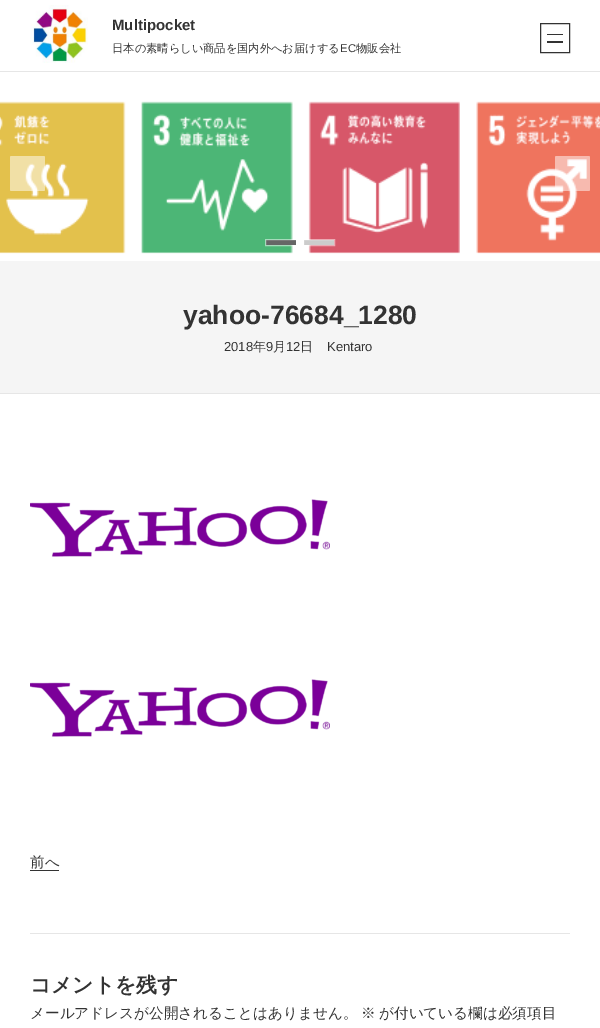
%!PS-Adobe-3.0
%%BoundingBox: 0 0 600 1028
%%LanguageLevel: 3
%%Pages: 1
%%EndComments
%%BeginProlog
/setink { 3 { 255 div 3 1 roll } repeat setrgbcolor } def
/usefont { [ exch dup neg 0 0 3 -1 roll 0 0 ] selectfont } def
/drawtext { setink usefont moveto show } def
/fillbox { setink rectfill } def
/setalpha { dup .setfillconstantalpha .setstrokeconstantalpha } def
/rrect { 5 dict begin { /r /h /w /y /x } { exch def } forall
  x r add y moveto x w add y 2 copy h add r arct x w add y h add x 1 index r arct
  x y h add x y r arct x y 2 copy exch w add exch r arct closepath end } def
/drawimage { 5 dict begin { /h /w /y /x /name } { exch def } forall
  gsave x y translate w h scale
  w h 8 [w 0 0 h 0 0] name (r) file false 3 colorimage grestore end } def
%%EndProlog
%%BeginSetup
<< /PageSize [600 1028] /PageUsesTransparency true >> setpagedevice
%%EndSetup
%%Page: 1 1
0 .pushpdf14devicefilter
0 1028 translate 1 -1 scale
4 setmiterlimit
0 0 600 1028 255 255 255 fillbox
(assets/img1.rgb) 30 5 58 58 drawimage
(Multipocket) 112 30 /LiberationSans-Bold 15 51 51 51 drawtext
(日本の素晴らしい商品を国内外へお届けする) 112 52 /WenQuanYiZenHei-Medium 11.25 51 51 51 drawtext
(EC) 340 52 /LiberationSans-Regular 11.25 51 51 51 drawtext
(物販会社) 356 52 /WenQuanYiZenHei-Medium 11.25 51 51 51 drawtext
540.5 23.5 29 29 rectstroke
547 34 16 1 51 51 51 fillbox
547 41 16 2 51 51 51 fillbox
0 71 600 1 230 230 230 fillbox
(assets/img2.rgb) 0 101 600 153 drawimage
0.5 setalpha
255 255 255 setink
10 156 35 35 1.5 rrect fill
555 156 35 35 1.5 rrect fill
1 setalpha
266 240 30 5 102 102 102 fillbox
0.5 setalpha
255 255 255 setink
265.5 239.5 31 6 rectstroke
1 setalpha
304 240 30 5 204 204 204 fillbox
0.5 setalpha
255 255 255 setink
303.5 239.5 31 6 rectstroke
1 setalpha
0 261 600 132 245 245 245 fillbox
(yahoo-76684_1280) 183 324 /LiberationSans-Bold 26.5 51 51 51 drawtext
(2018) 224 351 /LiberationSans-Regular 13 51 51 51 drawtext
(年) 253 351 /WenQuanYiZenHei-Medium 13 51 51 51 drawtext
(9) 266 351 /LiberationSans-Regular 13 51 51 51 drawtext
(月) 273 351 /WenQuanYiZenHei-Medium 13 51 51 51 drawtext
(12) 286 351 /LiberationSans-Regular 13 51 51 51 drawtext
(日) 300 351 /WenQuanYiZenHei-Medium 13 51 51 51 drawtext
(Kentaro) 327 351 /LiberationSans-Regular 13 51 51 51 drawtext
0 393 600 1 230 230 230 fillbox
(assets/img3.rgb) 30 499 300 58 drawimage
(assets/img3.rgb) 30 679 300 58 drawimage
(前へ) 30 867 /WenQuanYiZenHei-Medium 14.6 51 51 51 drawtext
30 870 29 1 51 51 51 fillbox
30 933 540 1 230 230 230 fillbox
(コメントを残す) 30 992 /WenQuanYiZenHei-Bold 20.75 51 51 51 drawtext
(メールアドレスが公開されることはありません。) 30 1018 /WenQuanYiZenHei-Medium 14.6 51 51 51 drawtext
(※) 361 1018 /WenQuanYiZenHei-Medium 14.6 51 51 51 drawtext
(が付いている欄は必須項目) 379 1018 /WenQuanYiZenHei-Medium 14.6 51 51 51 drawtext
.poppdf14devicefilter showpage
%%EOF
